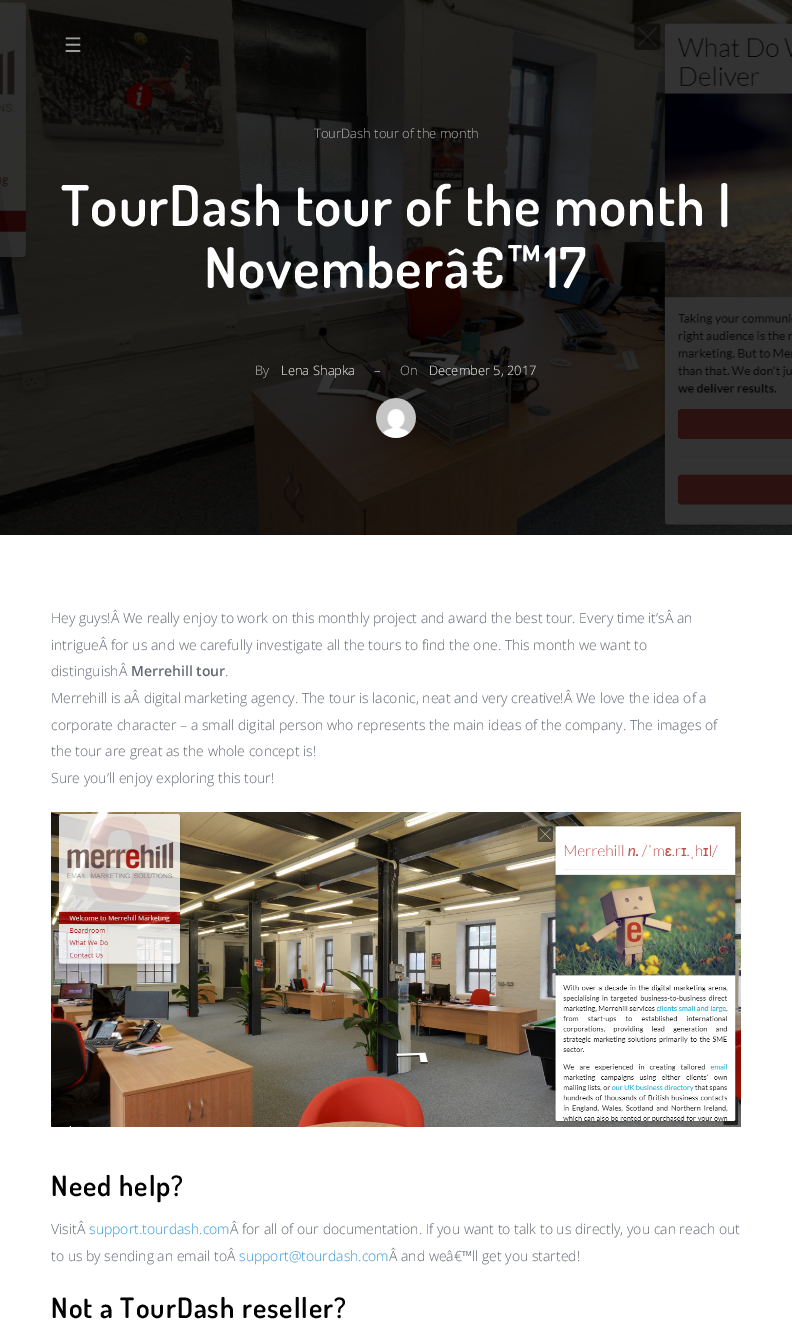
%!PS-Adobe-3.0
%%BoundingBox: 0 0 792 1338
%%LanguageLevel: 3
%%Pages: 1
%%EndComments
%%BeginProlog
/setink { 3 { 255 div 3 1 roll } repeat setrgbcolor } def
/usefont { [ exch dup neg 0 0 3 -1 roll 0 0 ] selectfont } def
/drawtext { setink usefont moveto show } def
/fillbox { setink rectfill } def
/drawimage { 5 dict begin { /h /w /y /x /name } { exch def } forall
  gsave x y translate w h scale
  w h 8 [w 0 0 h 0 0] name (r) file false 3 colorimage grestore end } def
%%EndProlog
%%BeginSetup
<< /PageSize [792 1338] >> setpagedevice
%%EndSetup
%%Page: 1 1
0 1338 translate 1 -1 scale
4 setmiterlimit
0 0 792 1338 255 255 255 fillbox
(assets/img1.rgb) 0 0 792 535 drawimage
(☰) 64 52 /DejaVuSans-Regular 20 157 157 156 drawtext
(TourDash tour of the month) 314 138 /OpenSans-Light 13 186 186 186 drawtext
/Dosis-SemiBold 56 usefont
255 255 255 setink
61 226 moveto 1 0 (TourDash tour of the month |) ashow
204 288 moveto 1 0 (Novemberâ€™17) ashow
(By) 255 375 /OpenSans-Light 13 186 186 186 drawtext
(Lena Shapka) 281 375 /OpenSans-Light 13 255 255 255 drawtext
(–) 374 375 /OpenSans-Light 13 255 255 255 drawtext
(On) 400 375 /OpenSans-Light 13 186 186 186 drawtext
(December 5, 2017) 429 375 /OpenSans-Light 13 255 255 255 drawtext
(assets/img2.rgb) 376 398 40 40 drawimage
(Hey guys!Â We really enjoy to work on this monthly project and award the best tour. Every time it’sÂ an) 51 623 /OpenSans-Light 14 97 103 113 drawtext
(intrigueÂ for us and we carefully investigate all the tours to find the one. This month we want to) 51 650 /OpenSans-Light 14 97 103 113 drawtext
(distinguishÂ) 51 676 /OpenSans-Light 14 97 103 113 drawtext
(Merrehill tour) 131 676 /OpenSans-SemiBold 14 97 103 113 drawtext
(.) 225 676 /OpenSans-Light 14 97 103 113 drawtext
(Merrehill is aÂ digital marketing agency. The tour is laconic, neat and very creative!Â We love the idea of a) 51 703 /OpenSans-Light 14 97 103 113 drawtext
(corporate character – a small digital person who represents the main ideas of the company. The images of) 51 730 /OpenSans-Light 14 97 103 113 drawtext
(the tour are great as the whole concept is!) 51 756 /OpenSans-Light 14 97 103 113 drawtext
(Sure you’ll enjoy exploring this tour!) 51 783 /OpenSans-Light 14 97 103 113 drawtext
(assets/img3.rgb) 51 812 690 315 drawimage
/Dosis-SemiBold 28 usefont
0 0 0 setink
51 1196 moveto 1 0 (Need help?) ashow
(VisitÂ) 51 1234 /OpenSans-Light 14 97 103 113 drawtext
(support.tourdash.com) 89 1234 /OpenSans-Light 14 52 152 219 drawtext
(Â for all of our documentation. If you want to talk to us directly, you can reach out) 230 1234 /OpenSans-Light 14 97 103 113 drawtext
(to us by sending an email toÂ) 51 1261 /OpenSans-Light 14 97 103 113 drawtext
(support@tourdash.com) 239 1261 /OpenSans-Light 14 52 152 219 drawtext
(Â and weâ€™ll get you started!) 389 1261 /OpenSans-Light 14 97 103 113 drawtext
/Dosis-SemiBold 28 usefont
0 0 0 setink
51 1318 moveto 1 0 (Not a TourDash reseller?) ashow
showpage
%%EOF
